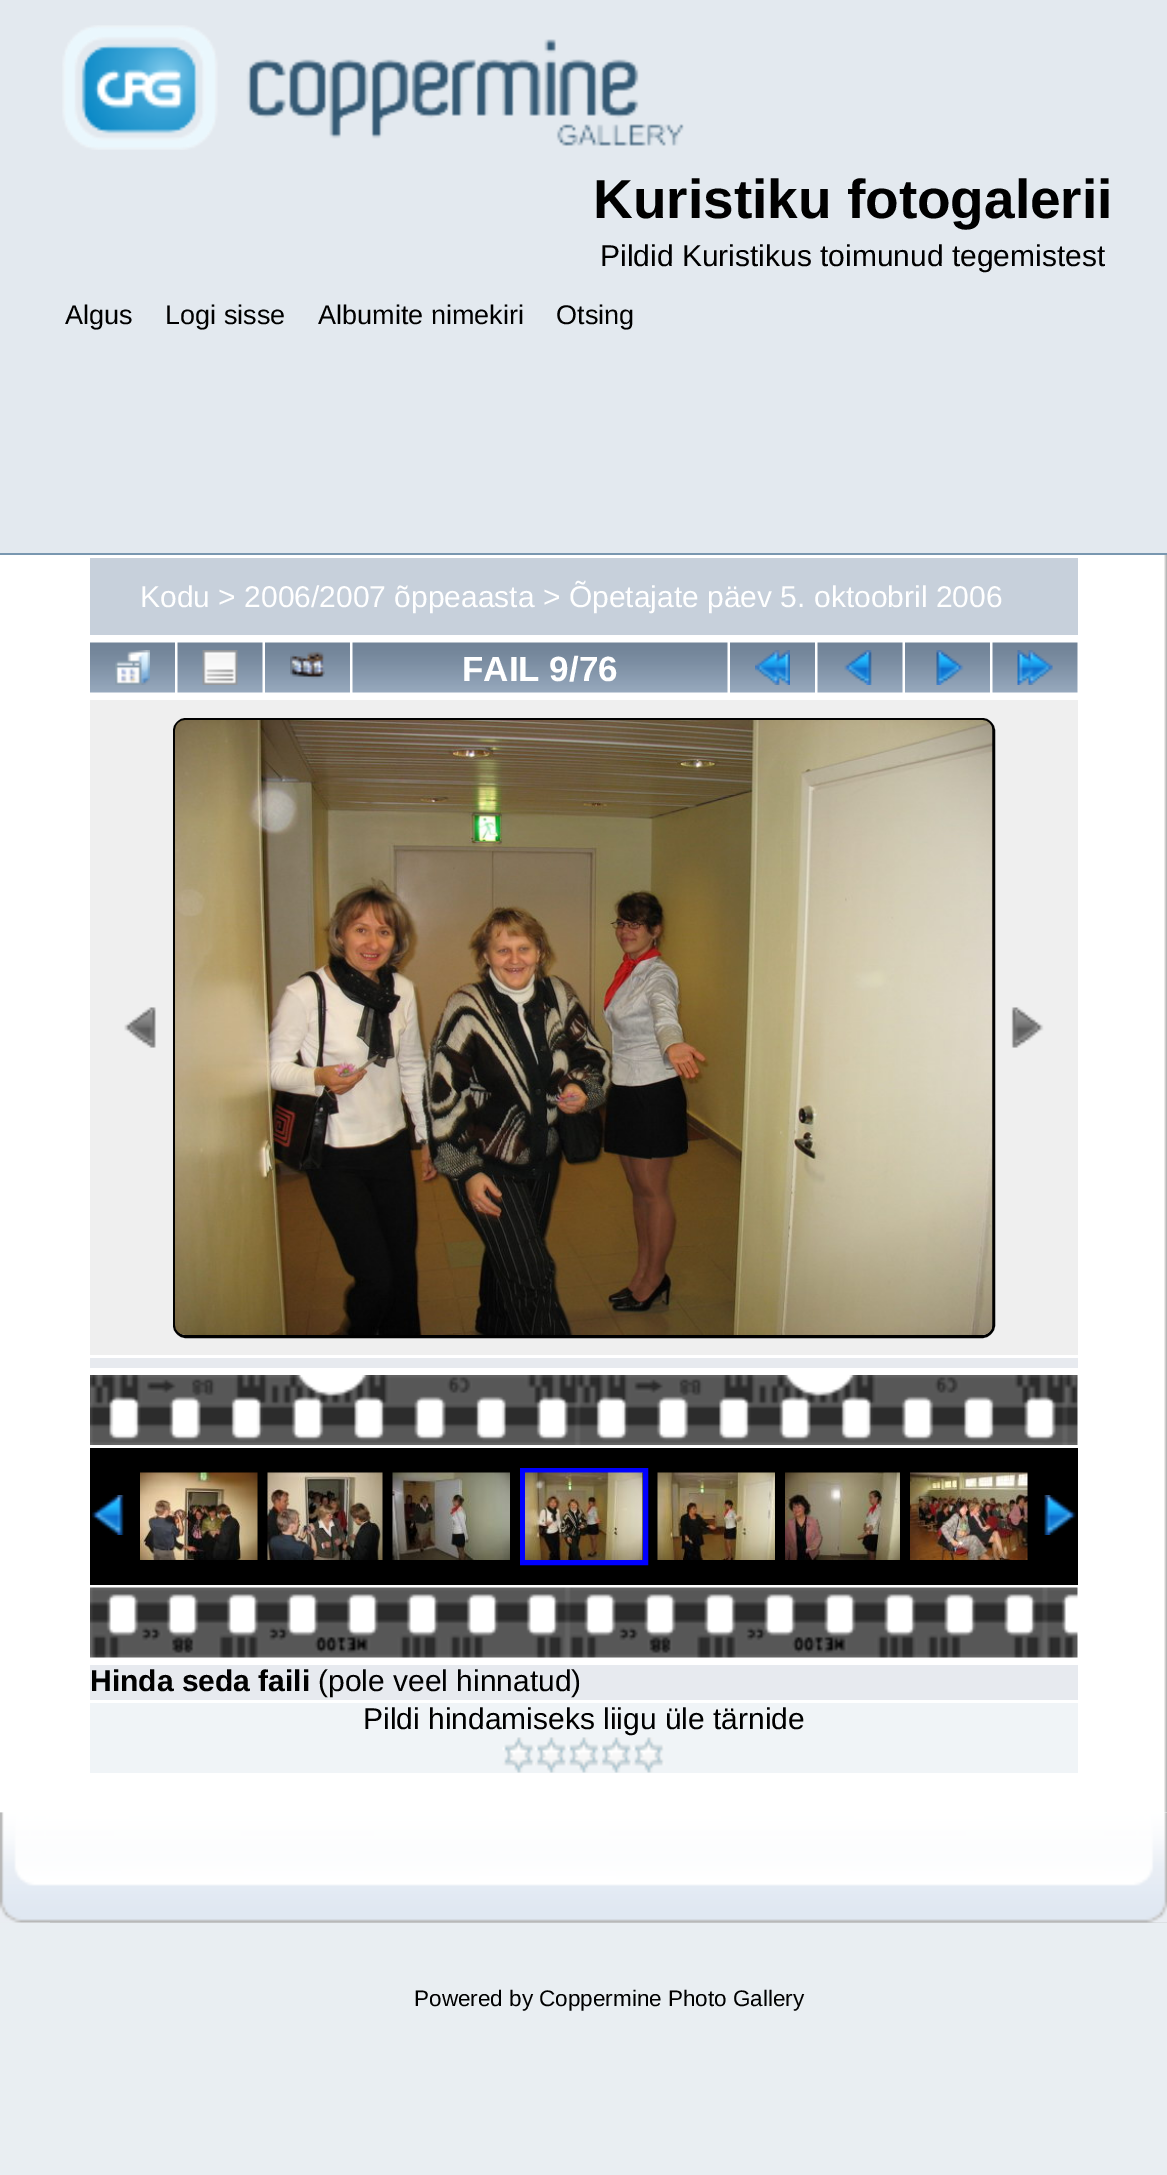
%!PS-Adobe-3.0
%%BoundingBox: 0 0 1167 2175
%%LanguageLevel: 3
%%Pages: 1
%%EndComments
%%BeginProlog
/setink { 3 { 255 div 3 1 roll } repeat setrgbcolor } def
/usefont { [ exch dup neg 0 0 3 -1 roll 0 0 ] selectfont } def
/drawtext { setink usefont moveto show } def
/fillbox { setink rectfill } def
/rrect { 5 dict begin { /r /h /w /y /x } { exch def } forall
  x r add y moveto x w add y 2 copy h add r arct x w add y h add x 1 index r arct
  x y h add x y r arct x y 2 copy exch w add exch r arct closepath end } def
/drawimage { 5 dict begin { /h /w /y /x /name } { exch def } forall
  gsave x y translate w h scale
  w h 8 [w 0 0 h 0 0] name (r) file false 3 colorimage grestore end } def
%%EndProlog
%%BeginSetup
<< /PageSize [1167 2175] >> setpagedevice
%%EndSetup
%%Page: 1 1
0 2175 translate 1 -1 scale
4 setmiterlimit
0 0 1167 2175 233 238 242 fillbox
(assets/img1.rgb) 0 553 1167 2 drawimage
0 0 1167 553 227 233 239 fillbox
(assets/img2.rgb) 62 25 622 125 drawimage
(Kuristiku fotogalerii) 593 218 /LiberationSans-Bold 55 0 0 0 drawtext
(Pildid Kuristikus toimunud tegemistest) 600 266 /LiberationSans-Regular 30 0 0 0 drawtext
(Algus) 65 324 /LiberationSans-Regular 27 0 0 0 drawtext
(Logi sisse) 165 324 /LiberationSans-Regular 27 0 0 0 drawtext
(Albumite nimekiri) 318 324 /LiberationSans-Regular 27 0 0 0 drawtext
(Otsing) 556 324 /LiberationSans-Regular 27 0 0 0 drawtext
(assets/img3.rgb) 0 1812 4 1 drawimage
(assets/img4.rgb) 0 555 1167 1258 drawimage
90 558 988 77 199 208 219 fillbox
(Kodu > 2006/2007 õppeaasta > Õpetajate päev 5. oktoobril 2006) 140 607 /LiberationSans-Regular 30 255 255 255 drawtext
(assets/img5.rgb) 90 642 85 51 drawimage
(assets/img6.rgb) 115 650 35 35 drawimage
(assets/img7.rgb) 177 642 86 51 drawimage
(assets/img8.rgb) 202 650 36 35 drawimage
(assets/img5.rgb) 265 642 85 51 drawimage
(assets/img9.rgb) 290 651 35 28 drawimage
(assets/img10.rgb) 352 642 376 51 drawimage
(FAIL 9/76) 462 681 /LiberationSans-Bold 35 255 255 255 drawtext
(assets/img5.rgb) 730 642 85 51 drawimage
(assets/img11.rgb) 755 650 35 35 drawimage
(assets/img7.rgb) 817 642 86 51 drawimage
(assets/img12.rgb) 844 650 28 35 drawimage
(assets/img5.rgb) 905 642 85 51 drawimage
(assets/img13.rgb) 936 650 28 35 drawimage
(assets/img7.rgb) 992 642 86 51 drawimage
(assets/img14.rgb) 1017 650 36 35 drawimage
90 700 988 655 239 239 239 fillbox
(assets/img15.rgb) 124 1007 32 41 drawimage
0 0 0 setink
3 setlinewidth
174.5 719.5 819 617 11.5 rrect stroke
(assets/img16.rgb) 175 720 818 615 drawimage
(assets/img17.rgb) 1011 1007 33 41 drawimage
90 1358 988 10 231 234 239 fillbox
(assets/img18.rgb) 90 1375 988 70 drawimage
90 1448 988 137 0 0 0 fillbox
(assets/img19.rgb) 92 1495 32 40 drawimage
(assets/img20.rgb) 140 1472 118 88 drawimage
(assets/img21.rgb) 267 1472 116 88 drawimage
(assets/img22.rgb) 392 1472 118 88 drawimage
0 0 255 setink
5 setlinewidth
522.5 1470.5 123 92 rectstroke
(assets/img23.rgb) 525 1472 118 88 drawimage
(assets/img24.rgb) 657 1472 118 88 drawimage
(assets/img25.rgb) 785 1472 115 88 drawimage
(assets/img26.rgb) 910 1472 118 88 drawimage
(assets/img27.rgb) 1044 1495 32 40 drawimage
(assets/img28.rgb) 90 1587 988 71 drawimage
90 1665 988 35 231 234 239 fillbox
(Hinda seda faili) 90 1691 /LiberationSans-Bold 30 0 0 0 drawtext
(\(pole veel hinnatud\)) 318 1691 /LiberationSans-Regular 30 0 0 0 drawtext
90 1703 988 70 240 244 247 fillbox
(Pildi hindamiseks liigu üle tärnide) 363 1729 /LiberationSans-Regular 30 0 0 0 drawtext
(assets/img29.rgb) 502 1737 33 36 drawimage
(assets/img30.rgb) 535 1737 32 36 drawimage
(assets/img31.rgb) 567 1737 33 36 drawimage
(assets/img32.rgb) 600 1737 32 36 drawimage
(assets/img29.rgb) 632 1737 33 36 drawimage
(assets/img33.rgb) 0 1812 1167 111 drawimage
(assets/img34.rgb) 50 1812 1117 111 drawimage
(Powered by Coppermine Photo Gallery) 414 2006 /LiberationSans-Regular 22.5 0 0 0 drawtext
showpage
%%EOF
